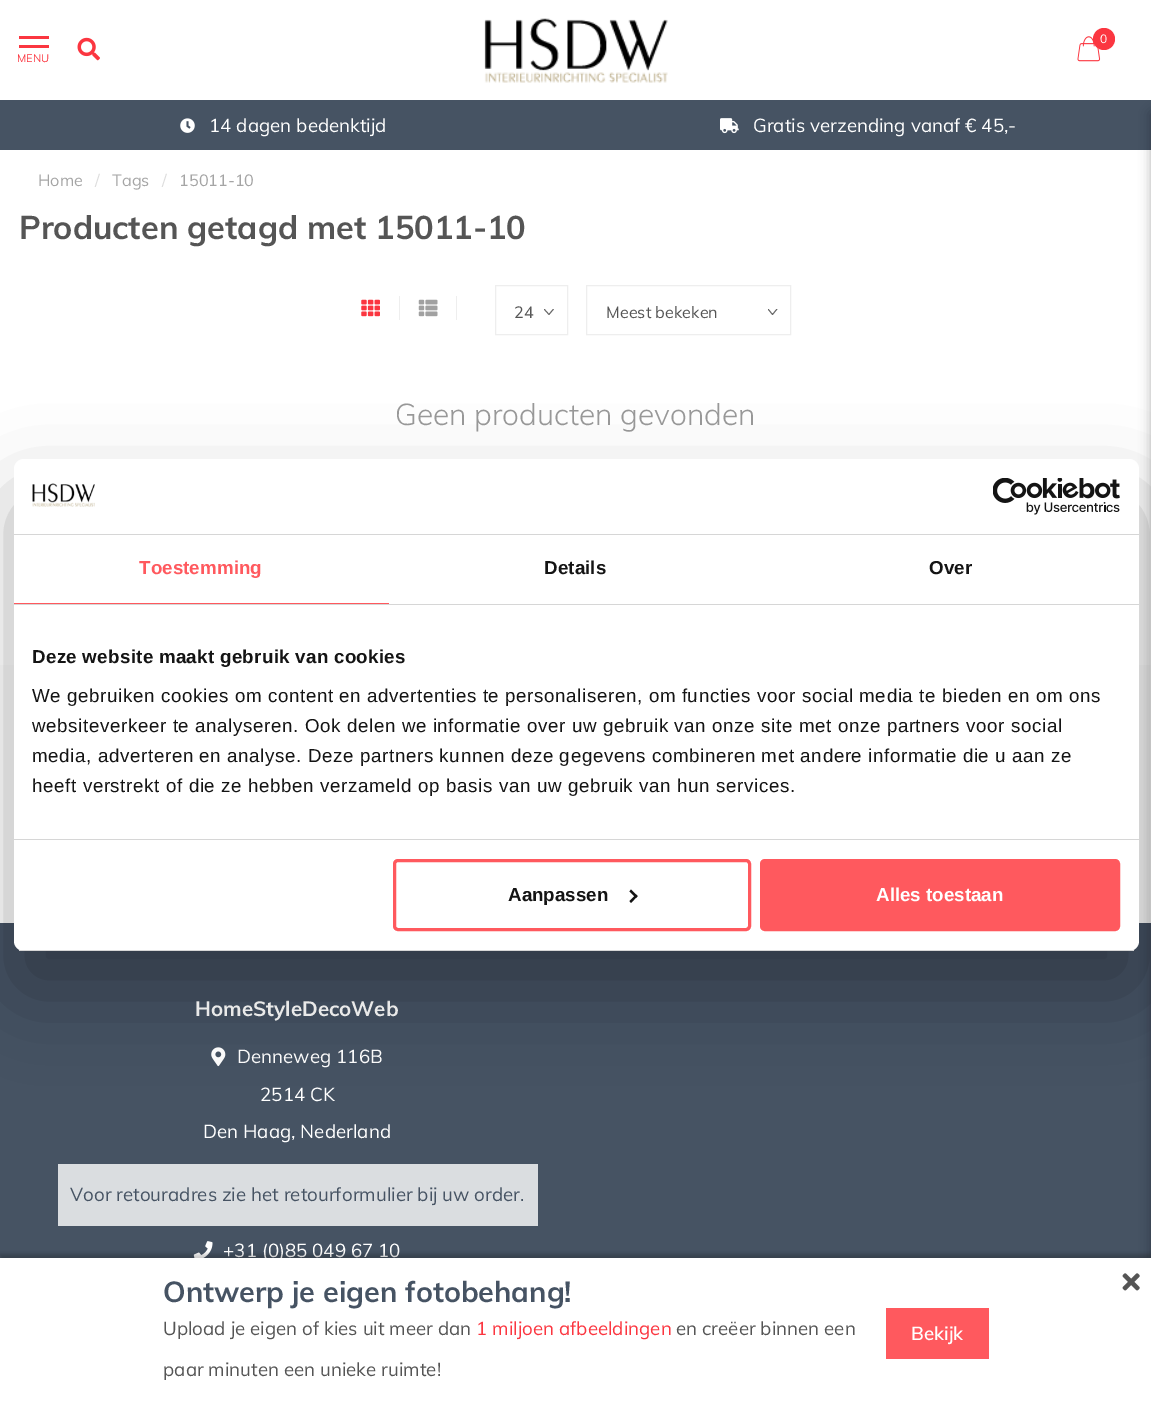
%!PS-Adobe-3.0
%%BoundingBox: 0 0 1151 1408
%%LanguageLevel: 3
%%Pages: 1
%%EndComments
%%BeginProlog
/setink { 3 { 255 div 3 1 roll } repeat setrgbcolor } def
/usefont { [ exch dup neg 0 0 3 -1 roll 0 0 ] selectfont } def
/drawtext { setink usefont moveto show } def
/fillbox { setink rectfill } def
/setalpha { dup .setfillconstantalpha .setstrokeconstantalpha } def
/disc { newpath 0 360 arc closepath } def
/rrect { 5 dict begin { /r /h /w /y /x } { exch def } forall
  x r add y moveto x w add y 2 copy h add r arct x w add y h add x 1 index r arct
  x y h add x y r arct x y 2 copy exch w add exch r arct closepath end } def
/softshadow { 12 dict begin { /a /b /q /h /w /y /x } { exch def } forall gsave /was 0 def
  9 -2 -9 { dup b mul 4 div /e exch def 1 sub .425 mul 2.718 exch exp 1 add a .99 .min exch div /now exch def
    1 1 now sub 1 was sub div sub setalpha /was now def
    w h .min e 2 mul add 0 gt { x e sub y e sub w e 2 mul add h e 2 mul add
      q e add b .6 mul add w h .min 2 div e add .min 0 .max rrect fill } if } for grestore end } def
/drawimage { 5 dict begin { /h /w /y /x /name } { exch def } forall
  gsave x y translate w h scale
  w h 8 [w 0 0 h 0 0] name (r) file false 3 colorimage grestore end } def
%%EndProlog
%%BeginSetup
<< /PageSize [1151 1408] /PageUsesTransparency true >> setpagedevice
%%EndSetup
%%Page: 1 1
0 .pushpdf14devicefilter
0 1408 translate 1 -1 scale
4 setmiterlimit
0 0 1151 1408 255 255 255 fillbox
(assets/img1.rgb) 484 18 184 65 drawimage
(assets/img2.rgb) 1077 36 24 26 drawimage
251 54 64 setink
1104 39 11 disc fill
(0) 1100 43 /Muli-Regular 12 255 255 255 drawtext
19 36 30 3 251 54 64 fillbox
19 45 30 3 251 54 64 fillbox
(MENU) 17 62 /Muli-Regular 11 251 54 64 drawtext
(assets/img3.rgb) 77 37 23 24 drawimage
0 100 1151 50 70 83 99 fillbox
(assets/img4.rgb) 180 118 15 15 drawimage
(14 dagen bedenktijd) 209 132 /Muli-Regular 18.75 255 255 255 drawtext
(assets/img5.rgb) 720 118 19 16 drawimage
(Gratis verzending vanaf € 45,-) 753 132 /Muli-Regular 18.75 255 255 255 drawtext
(Home) 38 186 /Muli-Regular 16.25 165 165 165 drawtext
(/) 95 186 /Muli-Regular 16.25 221 221 221 drawtext
(Tags) 112 186 /Muli-Regular 16.25 165 165 165 drawtext
(/) 162 186 /Muli-Regular 16.25 221 221 221 drawtext
(15011-10) 179 186 /Muli-Regular 16.25 165 165 165 drawtext
(Producten getagd met 15011-10) 19 239 /Muli-Bold 32.5 85 85 85 drawtext
399 296 1 24 238 238 238 fillbox
(assets/img6.rgb) 361 299 19 18 drawimage
456 296 1 24 238 238 238 fillbox
(assets/img7.rgb) 418 299 20 18 drawimage
gsave
544 309 10 6 rectclip
102 102 102 setink
0.9 setlinewidth
553.5 309 moveto 549 314.5 lineto 544 309 lineto stroke
grestore
495.5 285.5 72 49 rectstroke
(24) 514 318 /Muli-Regular 16.25 85 85 85 drawtext
gsave
768 309 10 6 rectclip
102 102 102 setink
0.9 setlinewidth
777 309 moveto 772.5 314.5 lineto 768 309 lineto stroke
grestore
238 238 238 setink
586.5 285.5 204 49 rectstroke
(Meest bekeken) 606 318 /Muli-Regular 16.25 85 85 85 drawtext
(Geen producten gevonden) 395 425 /Muli-Light 30 153 153 153 drawtext
0 665 1151 258 251 251 251 fillbox
0 923 1151 335 70 83 99 fillbox
(HomeStyleDecoWeb) 195 1016 /Muli-Bold 20.6 255 255 255 drawtext
(assets/img8.rgb) 211 1047 15 20 drawimage
(Denneweg 116B) 237 1063 /Muli-Regular 18.75 255 255 255 drawtext
(2514 CK) 260 1101 /Muli-Regular 18.75 255 255 255 drawtext
(Den Haag, Nederland) 203 1138 /Muli-Regular 18.75 255 255 255 drawtext
58 1164 480 62 218 221 224 fillbox
(Voor retouradres zie het retourformulier bij uw order.) 70 1201 /Muli-Regular 18.75 70 83 99 drawtext
(assets/img9.rgb) 193 1241 20 17 drawimage
(+31 \(0\)85 049 67 10) 223 1257 /Muli-Regular 18.75 255 255 255 drawtext
0 0 0 setink
0 1254 1151 151 0 2 0.2 softshadow
1151 113 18 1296 0 6 0.3 softshadow
0 1258 1151 150 255 255 255 fillbox
(Ontwerp je eigen fotobehang!) 163 1302 /Muli-Bold 28.75 70 83 99 drawtext
(Upload je eigen of kies uit meer dan) 163 1335 /Muli-Regular 18.75 85 85 85 drawtext
(1 miljoen afbeeldingen) 476 1335 /Muli-Regular 18.75 251 54 64 drawtext
(en creëer binnen een) 676 1335 /Muli-Regular 18.75 85 85 85 drawtext
(paar minuten een unieke ruimte!) 163 1376 /Muli-Regular 18.75 85 85 85 drawtext
886 1308 103 51 255 89 94 fillbox
(Bekijk) 911 1340 /Muli-SemiBold 18.75 255 255 255 drawtext
(assets/img10.rgb) 1122 1273 18 18 drawimage
0 0 0 setink
14 499 1125 492 10 42.5 0.3 softshadow
255 255 255 setink
14 459 1125 492 10 rrect fill
14 534 1125 1 214 214 214 fillbox
(assets/img11.rgb) 32 483 63 24 drawimage
(assets/img12.rgb) 993 478 127 37 drawimage
14 604 1125 1 214 214 214 fillbox
14 603 375 1 255 89 94 fillbox
/LiberationSans-Bold 18.75 usefont
139 574 moveto 0.1 0 (Toestemming) ashow
20 20 20 setink
544 574 moveto 0.1 0 (Details) ashow
929 574 moveto 0.1 0 (Over) ashow
14 839 1125 1 214 214 214 fillbox
20 20 20 setink
32 663 moveto 0.3 0 (Deze website maakt gebruik van cookies) ashow
/LiberationSans-Regular 18.75 usefont
32 702 moveto 0.62 0 (We gebruiken cookies om content en advertenties te personaliseren, om functies voor social media te bieden en om ons) ashow
32 732 moveto 0.62 0 (websiteverkeer te analyseren. Ook delen we informatie over uw gebruik van onze site met onze partners voor social) ashow
32 762 moveto 0.62 0 (media, adverteren en analyse. Deze partners kunnen deze gegevens combineren met andere informatie die u aan ze) ashow
32 792 moveto 0.62 0 (heeft verstrekt of die ze hebben verzameld op basis van uw gebruik van hun services.) ashow
gsave
14 459 1125 492 10 rrect clip newpath
14 950 1125 1 214 214 214 fillbox
grestore
255 89 94 setink
3 setlinewidth
394.5 860.5 355 69 3.5 rrect stroke
(Aanpassen) 508 901 /LiberationSans-Bold 18.75 20 20 20 drawtext
631 889.5 moveto 637.5 896 lineto 636 898 lineto 629.5 891.5 lineto closepath fill
636 894.5 moveto 637.5 896 lineto 631 903 lineto 629.5 901 lineto closepath fill
255 89 94 setink
761.5 860.5 357 69 3.5 rrect gsave fill grestore
stroke
(Alles toestaan) 876 901 /LiberationSans-Bold 18.75 255 255 255 drawtext
.poppdf14devicefilter showpage
%%EOF
